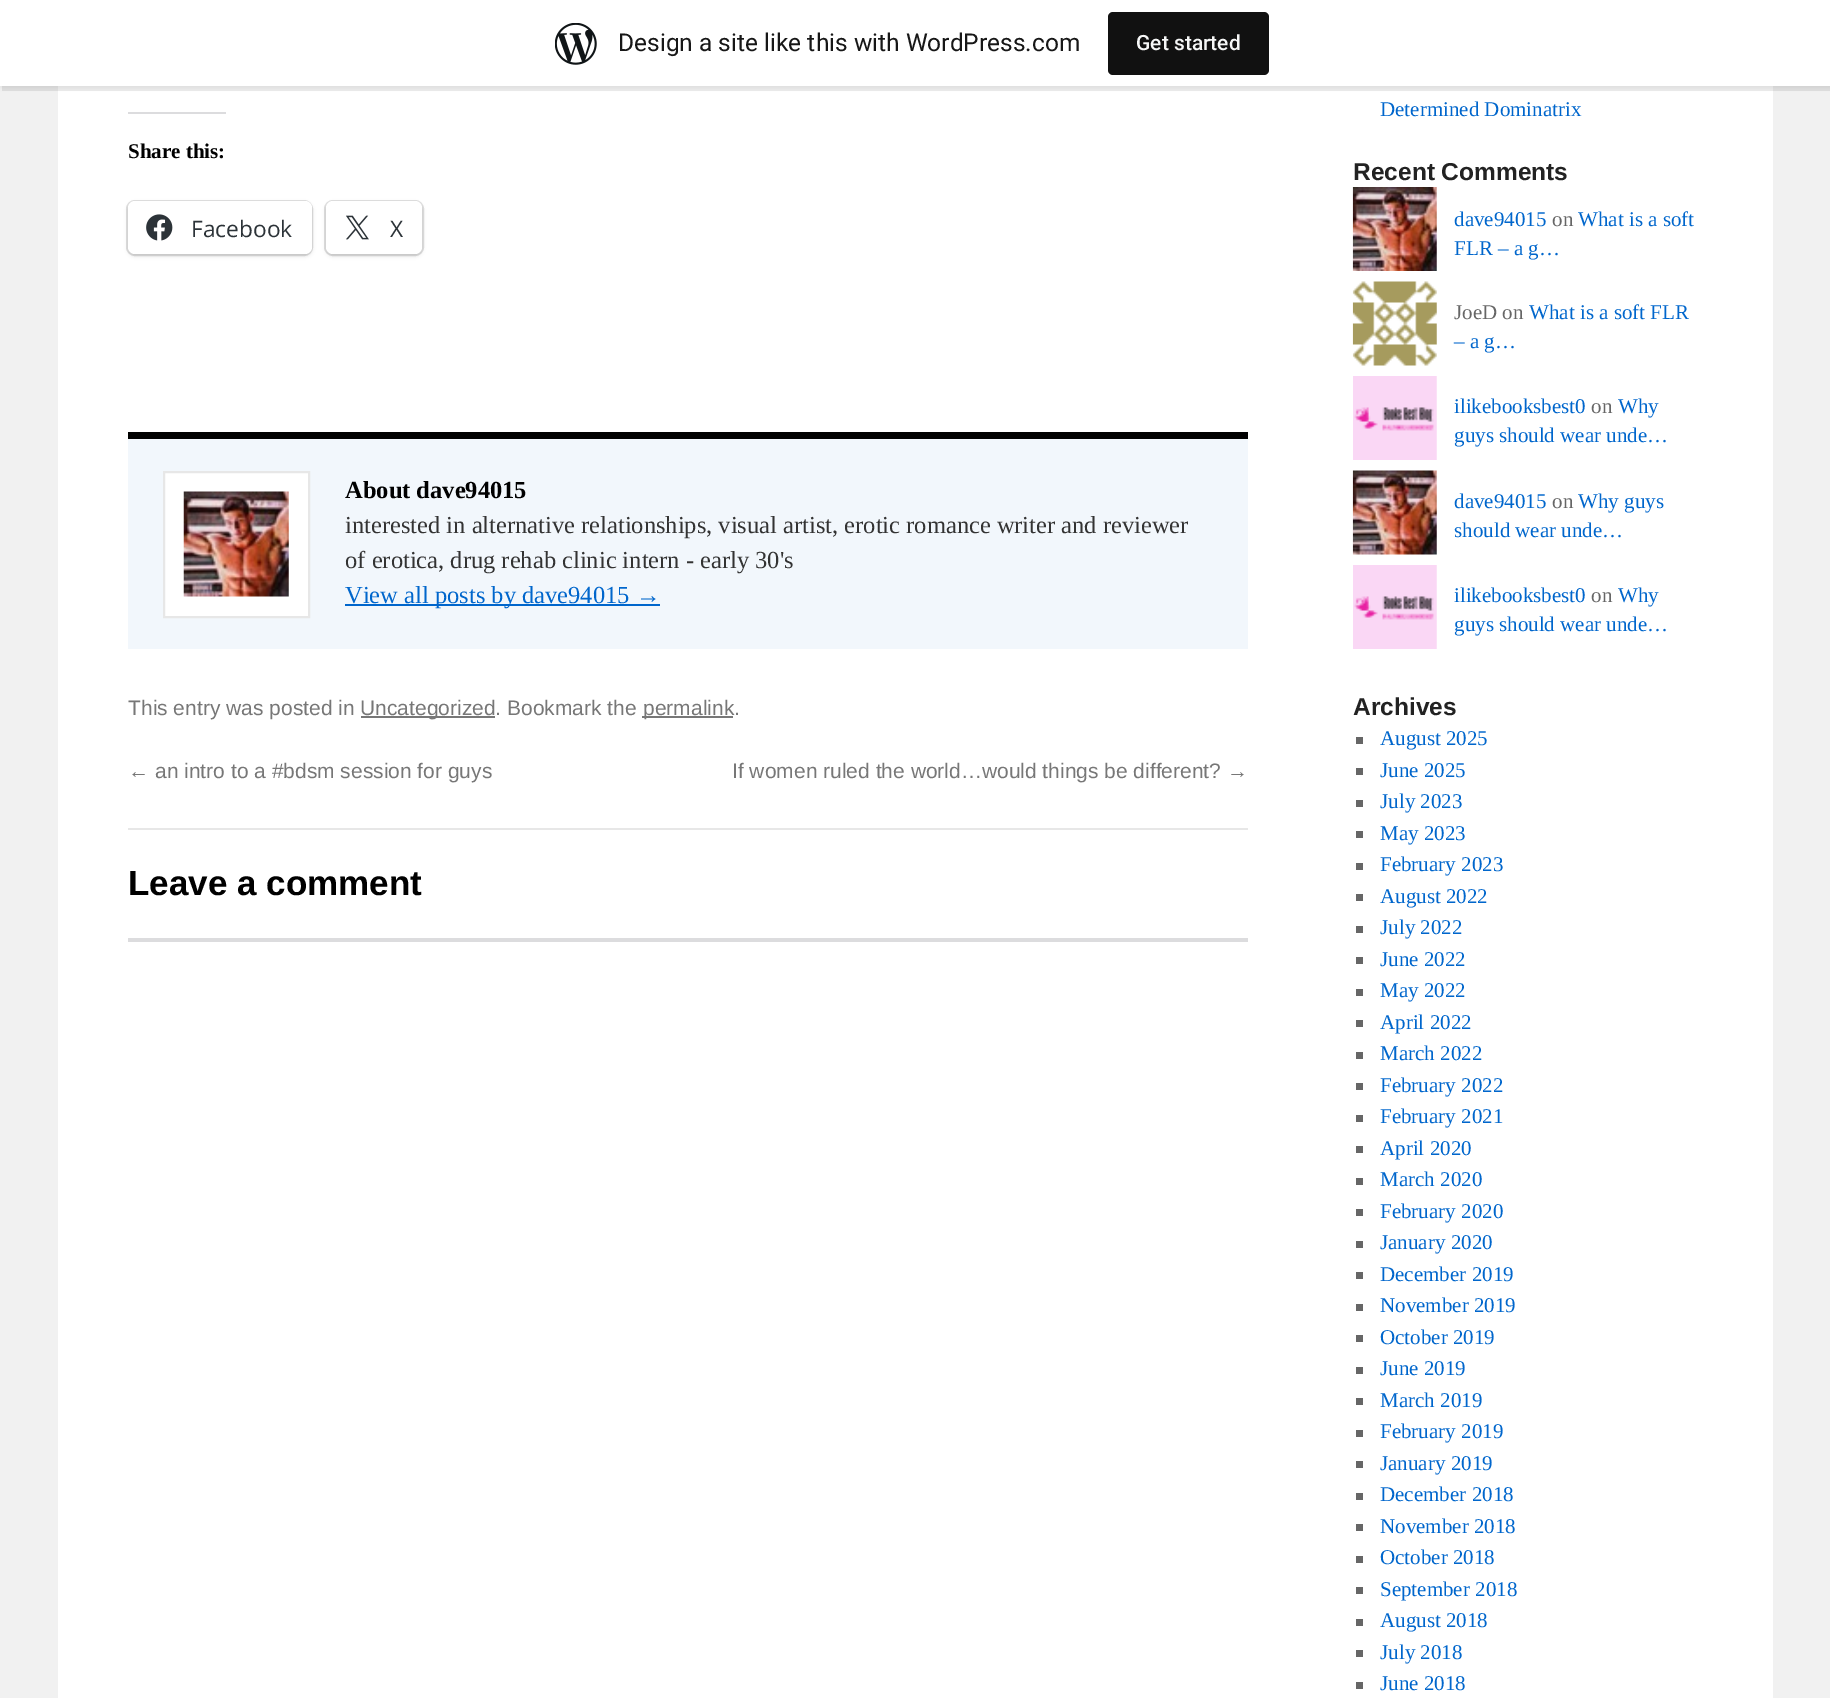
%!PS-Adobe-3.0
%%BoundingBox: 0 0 1830 1698
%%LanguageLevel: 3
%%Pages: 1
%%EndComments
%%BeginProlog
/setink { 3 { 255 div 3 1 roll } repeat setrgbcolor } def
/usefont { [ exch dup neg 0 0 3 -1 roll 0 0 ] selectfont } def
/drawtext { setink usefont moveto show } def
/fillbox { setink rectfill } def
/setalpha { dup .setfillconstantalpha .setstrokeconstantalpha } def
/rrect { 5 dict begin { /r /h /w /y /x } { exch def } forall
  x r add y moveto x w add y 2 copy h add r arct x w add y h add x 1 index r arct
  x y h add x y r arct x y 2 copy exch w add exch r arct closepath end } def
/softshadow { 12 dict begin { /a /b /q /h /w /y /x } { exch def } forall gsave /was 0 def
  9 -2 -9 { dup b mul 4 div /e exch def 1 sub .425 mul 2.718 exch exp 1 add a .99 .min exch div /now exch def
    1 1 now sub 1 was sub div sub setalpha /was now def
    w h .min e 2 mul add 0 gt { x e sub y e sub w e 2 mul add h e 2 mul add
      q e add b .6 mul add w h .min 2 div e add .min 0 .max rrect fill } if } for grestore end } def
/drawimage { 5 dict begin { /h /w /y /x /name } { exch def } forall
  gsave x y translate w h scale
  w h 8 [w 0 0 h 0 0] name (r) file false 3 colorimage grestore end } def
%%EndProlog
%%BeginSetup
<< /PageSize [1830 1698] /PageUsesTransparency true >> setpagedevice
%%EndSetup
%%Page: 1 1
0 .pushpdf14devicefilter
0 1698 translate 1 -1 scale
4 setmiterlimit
0 0 1830 1698 241 241 241 fillbox
58 86 1715 1612 255 255 255 fillbox
0 0 0 setink
0 2 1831 86 0 2 0.05 softshadow
0.08 setalpha
2 86 moveto 2 91 lineto 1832 91 lineto 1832 5 lineto 1830 5 lineto 1830 86 lineto closepath fill
1 setalpha
0 0 1830 86 255 255 255 fillbox
(assets/img1.rgb) 555 23 42 42 drawimage
(Design a site like this with WordPress.com) 618 51 /Roboto-Regular 24.5 23 23 23 drawtext
17 17 17 setink
1108 12 161 63 5 rrect fill
(Get started) 1136 50 /Roboto-Medium 21 246 247 247 drawtext
128 112 98 2 220 220 222 fillbox
(Share this:) 128 158 /LiberationSerif-Bold 21 0 0 0 drawtext
224 224 224 setink
2 setlinewidth
127 201 185 54 8 rrect stroke
0 0 0 setink
128 203 184 53 7 2 0.12 softshadow
255 255 255 setink
128 201 184 53 7 rrect fill
(assets/img2.rgb) 146 214 27 27 drawimage
(Facebook) 191 237 /OpenSans-Regular 22.75 44 51 56 drawtext
224 224 224 setink
325 201 98 54 8 rrect stroke
0 0 0 setink
326 203 96 53 7 2 0.12 softshadow
255 255 255 setink
326 201 96 53 7 rrect fill
(assets/img3.rgb) 346 215 23 25 drawimage
(X) 390 237 /OpenSans-Regular 22.75 44 51 56 drawtext
128 439 1120 210 242 247 252 fillbox
128 432 1120 7 0 0 0 fillbox
255 255 255 setink
164 472 moveto 309 472 lineto 309 617 lineto 164 617 lineto closepath gsave fill grestore
231 231 231 setink
stroke
(assets/img4.rgb) 183 491 106 106 drawimage
(About dave94015) 345 498 /LiberationSerif-Bold 24.5 0 0 0 drawtext
(interested in alternative relationships, visual artist, erotic romance writer and reviewer) 345 533 /LiberationSerif-Regular 24.5 51 51 51 drawtext
(of erotica, drug rehab clinic intern - early 30's) 345 568 /LiberationSerif-Regular 24.5 51 51 51 drawtext
345 604 315 2 0 102 204 fillbox
(View all posts by dave94015 →) 345 603 /LiberationSerif-Regular 24.5 0 102 204 drawtext
(This entry was posted in) 128 715 /LiberationSans-Regular 21 119 119 119 drawtext
361 716 134 2 119 119 119 fillbox
(Uncategorized. Bookmark the) 360 715 /LiberationSans-Regular 21 119 119 119 drawtext
642 716 91 2 119 119 119 fillbox
(permalink.) 643 715 /LiberationSans-Regular 21 119 119 119 drawtext
(← an intro to a #bdsm session for guys) 128 778 /LiberationSans-Regular 21 119 119 119 drawtext
(If women ruled the world…would things be different? →) 732 778 /LiberationSans-Regular 21 119 119 119 drawtext
128 828 1120 2 231 231 231 fillbox
(Leave a comment) 128 895 /LiberationSans-Bold 35 0 0 0 drawtext
128 938 1120 4 220 220 222 fillbox
(Determined Dominatrix) 1380 116 /LiberationSerif-Regular 21 0 102 204 drawtext
(Recent Comments) 1353 180 /LiberationSans-Bold 24.5 34 34 34 drawtext
(assets/img5.rgb) 1352 187 85 84 drawimage
(dave94015) 1454 226 /LiberationSerif-Regular 21 0 102 204 drawtext
(on) 1552 226 /LiberationSerif-Regular 21 102 102 102 drawtext
(What is a soft) 1578 226 /LiberationSerif-Regular 21 0 102 204 drawtext
(FLR – a g…) 1454 255 /LiberationSerif-Regular 21 0 102 204 drawtext
(assets/img6.rgb) 1352 281 85 85 drawimage
(JoeD on) 1454 319 /LiberationSerif-Regular 21 102 102 102 drawtext
(What is a soft FLR) 1529 319 /LiberationSerif-Regular 21 0 102 204 drawtext
(– a g…) 1454 348 /LiberationSerif-Regular 21 0 102 204 drawtext
(assets/img7.rgb) 1353 376 84 84 drawimage
(ilikebooksbest0) 1454 413 /LiberationSerif-Regular 21 0 102 204 drawtext
(on) 1591 413 /LiberationSerif-Regular 21 102 102 102 drawtext
(Why) 1618 413 /LiberationSerif-Regular 21 0 102 204 drawtext
(guys should wear unde…) 1454 442 /LiberationSerif-Regular 21 0 102 204 drawtext
(assets/img8.rgb) 1352 470 85 85 drawimage
(dave94015) 1454 508 /LiberationSerif-Regular 21 0 102 204 drawtext
(on) 1552 508 /LiberationSerif-Regular 21 102 102 102 drawtext
(Why guys) 1578 508 /LiberationSerif-Regular 21 0 102 204 drawtext
(should wear unde…) 1454 537 /LiberationSerif-Regular 21 0 102 204 drawtext
(assets/img7.rgb) 1353 565 84 84 drawimage
(ilikebooksbest0) 1454 602 /LiberationSerif-Regular 21 0 102 204 drawtext
(on) 1591 602 /LiberationSerif-Regular 21 102 102 102 drawtext
(Why) 1618 602 /LiberationSerif-Regular 21 0 102 204 drawtext
(guys should wear unde…) 1454 631 /LiberationSerif-Regular 21 0 102 204 drawtext
(Archives) 1353 715 /LiberationSans-Bold 24.5 34 34 34 drawtext
1356 737 7 7 102 102 102 fillbox
(August 2025) 1380 745 /LiberationSerif-Regular 21 0 102 204 drawtext
1356 768 7 7 102 102 102 fillbox
(June 2025) 1380 777 /LiberationSerif-Regular 21 0 102 204 drawtext
1356 800 7 7 102 102 102 fillbox
(July 2023) 1380 808 /LiberationSerif-Regular 21 0 102 204 drawtext
1356 831 7 7 102 102 102 fillbox
(May 2023) 1380 840 /LiberationSerif-Regular 21 0 102 204 drawtext
1356 863 7 7 102 102 102 fillbox
(February 2023) 1380 871 /LiberationSerif-Regular 21 0 102 204 drawtext
1356 894 7 7 102 102 102 fillbox
(August 2022) 1380 903 /LiberationSerif-Regular 21 0 102 204 drawtext
1356 926 7 7 102 102 102 fillbox
(July 2022) 1380 934 /LiberationSerif-Regular 21 0 102 204 drawtext
1356 957 7 7 102 102 102 fillbox
(June 2022) 1380 966 /LiberationSerif-Regular 21 0 102 204 drawtext
1356 989 7 7 102 102 102 fillbox
(May 2022) 1380 997 /LiberationSerif-Regular 21 0 102 204 drawtext
1356 1020 7 7 102 102 102 fillbox
(April 2022) 1380 1029 /LiberationSerif-Regular 21 0 102 204 drawtext
1356 1052 7 7 102 102 102 fillbox
(March 2022) 1380 1060 /LiberationSerif-Regular 21 0 102 204 drawtext
1356 1083 7 7 102 102 102 fillbox
(February 2022) 1380 1092 /LiberationSerif-Regular 21 0 102 204 drawtext
1356 1115 7 7 102 102 102 fillbox
(February 2021) 1380 1123 /LiberationSerif-Regular 21 0 102 204 drawtext
1356 1146 7 7 102 102 102 fillbox
(April 2020) 1380 1155 /LiberationSerif-Regular 21 0 102 204 drawtext
1356 1178 7 7 102 102 102 fillbox
(March 2020) 1380 1186 /LiberationSerif-Regular 21 0 102 204 drawtext
1356 1209 7 7 102 102 102 fillbox
(February 2020) 1380 1218 /LiberationSerif-Regular 21 0 102 204 drawtext
1356 1241 7 7 102 102 102 fillbox
(January 2020) 1380 1249 /LiberationSerif-Regular 21 0 102 204 drawtext
1356 1272 7 7 102 102 102 fillbox
(December 2019) 1380 1281 /LiberationSerif-Regular 21 0 102 204 drawtext
1356 1304 7 7 102 102 102 fillbox
(November 2019) 1380 1312 /LiberationSerif-Regular 21 0 102 204 drawtext
1356 1335 7 7 102 102 102 fillbox
(October 2019) 1380 1344 /LiberationSerif-Regular 21 0 102 204 drawtext
1356 1367 7 7 102 102 102 fillbox
(June 2019) 1380 1375 /LiberationSerif-Regular 21 0 102 204 drawtext
1356 1398 7 7 102 102 102 fillbox
(March 2019) 1380 1407 /LiberationSerif-Regular 21 0 102 204 drawtext
1356 1430 7 7 102 102 102 fillbox
(February 2019) 1380 1438 /LiberationSerif-Regular 21 0 102 204 drawtext
1356 1461 7 7 102 102 102 fillbox
(January 2019) 1380 1470 /LiberationSerif-Regular 21 0 102 204 drawtext
1356 1493 7 7 102 102 102 fillbox
(December 2018) 1380 1501 /LiberationSerif-Regular 21 0 102 204 drawtext
1356 1524 7 7 102 102 102 fillbox
(November 2018) 1380 1533 /LiberationSerif-Regular 21 0 102 204 drawtext
1356 1556 7 7 102 102 102 fillbox
(October 2018) 1380 1564 /LiberationSerif-Regular 21 0 102 204 drawtext
1356 1587 7 7 102 102 102 fillbox
(September 2018) 1380 1596 /LiberationSerif-Regular 21 0 102 204 drawtext
1356 1619 7 7 102 102 102 fillbox
(August 2018) 1380 1627 /LiberationSerif-Regular 21 0 102 204 drawtext
1356 1650 7 7 102 102 102 fillbox
(July 2018) 1380 1659 /LiberationSerif-Regular 21 0 102 204 drawtext
1356 1682 7 7 102 102 102 fillbox
(June 2018) 1380 1690 /LiberationSerif-Regular 21 0 102 204 drawtext
.poppdf14devicefilter showpage
%%EOF
